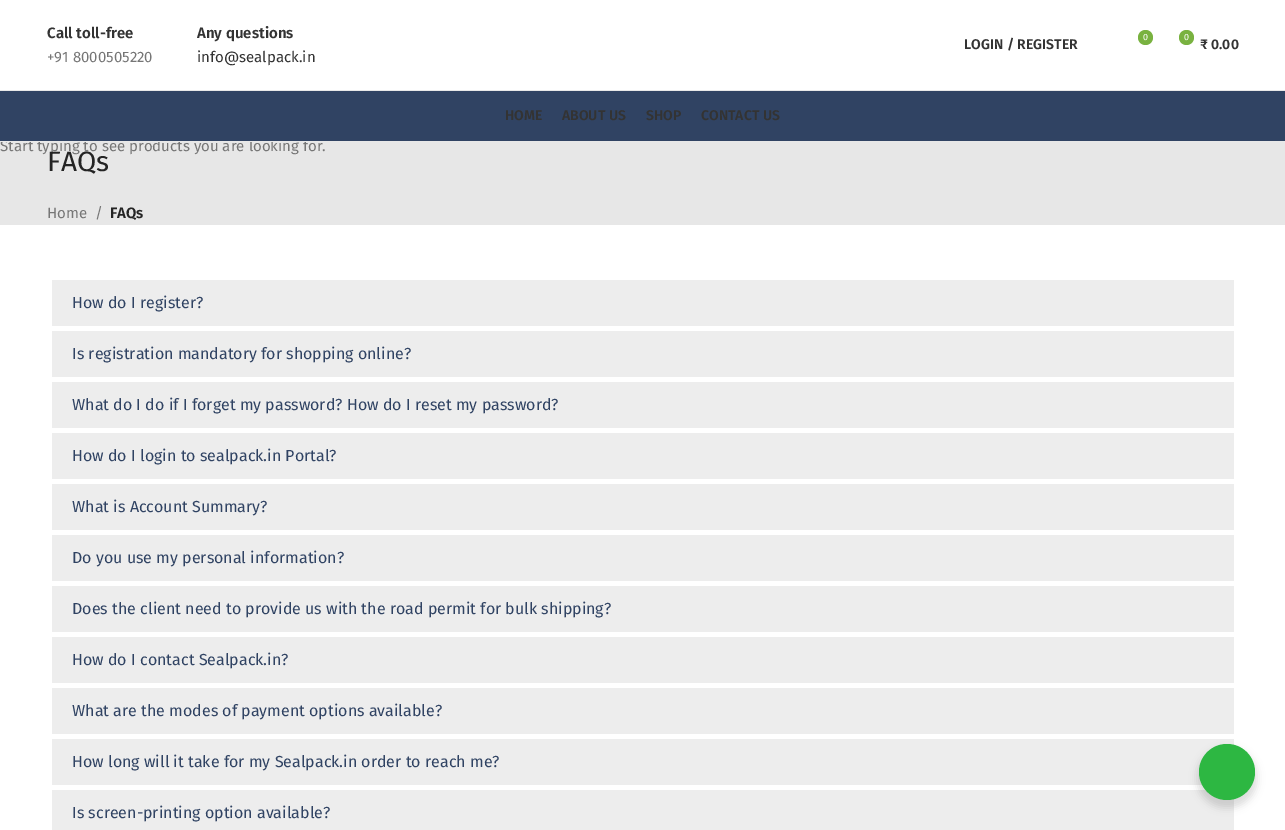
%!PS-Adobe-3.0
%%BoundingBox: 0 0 1285 830
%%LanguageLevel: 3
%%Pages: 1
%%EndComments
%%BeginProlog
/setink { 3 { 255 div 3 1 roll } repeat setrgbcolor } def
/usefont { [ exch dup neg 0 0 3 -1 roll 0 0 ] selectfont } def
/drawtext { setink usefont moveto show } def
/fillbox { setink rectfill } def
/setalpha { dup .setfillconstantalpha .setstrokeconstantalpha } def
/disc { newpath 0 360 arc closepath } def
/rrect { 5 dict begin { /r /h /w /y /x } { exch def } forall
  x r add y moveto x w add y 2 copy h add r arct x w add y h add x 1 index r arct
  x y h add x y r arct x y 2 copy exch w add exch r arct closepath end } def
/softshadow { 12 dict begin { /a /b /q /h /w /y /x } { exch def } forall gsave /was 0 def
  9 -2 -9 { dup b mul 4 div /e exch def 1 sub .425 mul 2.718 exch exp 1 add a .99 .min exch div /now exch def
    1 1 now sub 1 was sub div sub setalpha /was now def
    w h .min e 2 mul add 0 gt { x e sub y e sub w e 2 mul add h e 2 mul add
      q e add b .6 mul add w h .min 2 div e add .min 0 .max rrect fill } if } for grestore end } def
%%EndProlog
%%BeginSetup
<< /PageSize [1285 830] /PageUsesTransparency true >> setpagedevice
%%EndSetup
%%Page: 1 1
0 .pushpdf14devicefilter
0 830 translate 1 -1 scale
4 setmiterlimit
0 0 1285 830 255 255 255 fillbox
0 90 1285 1 232 232 232 fillbox
(Call toll-free) 47 38 /FiraSans-SemiBold 15 51 51 51 drawtext
(+91 8000505220) 47 62 /FiraSans-Regular 15 118 118 118 drawtext
(Any questions) 197 38 /FiraSans-SemiBold 15 51 51 51 drawtext
(info@sealpack.in) 197 62 /FiraSans-Regular 15 51 51 51 drawtext
(LOGIN / REGISTER) 964 49 /FiraSans-SemiBold 14 51 51 51 drawtext
121 178 64 setink
1145.5 37.5 7.5 disc fill
(0) 1143 40 /FiraSans-Regular 9 255 255 255 drawtext
121 178 64 setink
1186.5 37.5 7.5 disc fill
(0) 1184 40 /FiraSans-Regular 9 255 255 255 drawtext
(₹ 0.00) 1200 49 /FiraSans-SemiBold 14 51 51 51 drawtext
0 142 1285 83 231 231 231 fillbox
(Start typing to see products you are looking for.) 0 151 /FiraSans-Regular 15 118 118 118 drawtext
0 91 1285 50 48 67 99 fillbox
0 141 1285 1 232 232 232 fillbox
(HOME) 505 120 /FiraSans-SemiBold 14 51 51 51 drawtext
(ABOUT US) 562 120 /FiraSans-SemiBold 14 51 51 51 drawtext
(SHOP) 646 120 /FiraSans-SemiBold 14 51 51 51 drawtext
(CONTACT US) 701 120 /FiraSans-SemiBold 14 51 51 51 drawtext
(FAQs) 47 171 /FiraSans-Regular 28 36 36 36 drawtext
(Home) 47 218 /FiraSans-Regular 15 118 118 118 drawtext
(/) 95 218 /FiraSans-Regular 15 118 118 118 drawtext
(FAQs) 110 218 /FiraSans-SemiBold 15 36 36 36 drawtext
52 280 1182 46 237 237 237 fillbox
(How do I register?) 72 308 /FiraSans-Regular 16 48 67 99 drawtext
52 331 1182 46 237 237 237 fillbox
(Is registration mandatory for shopping online?) 72 359 /FiraSans-Regular 16 48 67 99 drawtext
52 382 1182 46 237 237 237 fillbox
(What do I do if I forget my password? How do I reset my password?) 72 410 /FiraSans-Regular 16 48 67 99 drawtext
52 433 1182 46 237 237 237 fillbox
(How do I login to sealpack.in Portal?) 72 461 /FiraSans-Regular 16 48 67 99 drawtext
52 484 1182 46 237 237 237 fillbox
(What is Account Summary?) 72 512 /FiraSans-Regular 16 48 67 99 drawtext
52 535 1182 46 237 237 237 fillbox
(Do you use my personal information?) 72 563 /FiraSans-Regular 16 48 67 99 drawtext
52 586 1182 46 237 237 237 fillbox
(Does the client need to provide us with the road permit for bulk shipping?) 72 614 /FiraSans-Regular 16 48 67 99 drawtext
52 637 1182 46 237 237 237 fillbox
(How do I contact Sealpack.in?) 72 665 /FiraSans-Regular 16 48 67 99 drawtext
52 688 1182 46 237 237 237 fillbox
(What are the modes of payment options available?) 72 716 /FiraSans-Regular 16 48 67 99 drawtext
52 739 1182 46 237 237 237 fillbox
(How long will it take for my Sealpack.in order to reach me?) 72 767 /FiraSans-Regular 16 48 67 99 drawtext
52 790 1182 40 237 237 237 fillbox
(Is screen-printing option available?) 72 818 /FiraSans-Regular 16 48 67 99 drawtext
0 0 0 setink
1197 748 60 60 30 4 0.14 softshadow
45 183 66 setink
1227 772 28 disc fill
.poppdf14devicefilter showpage
%%EOF
